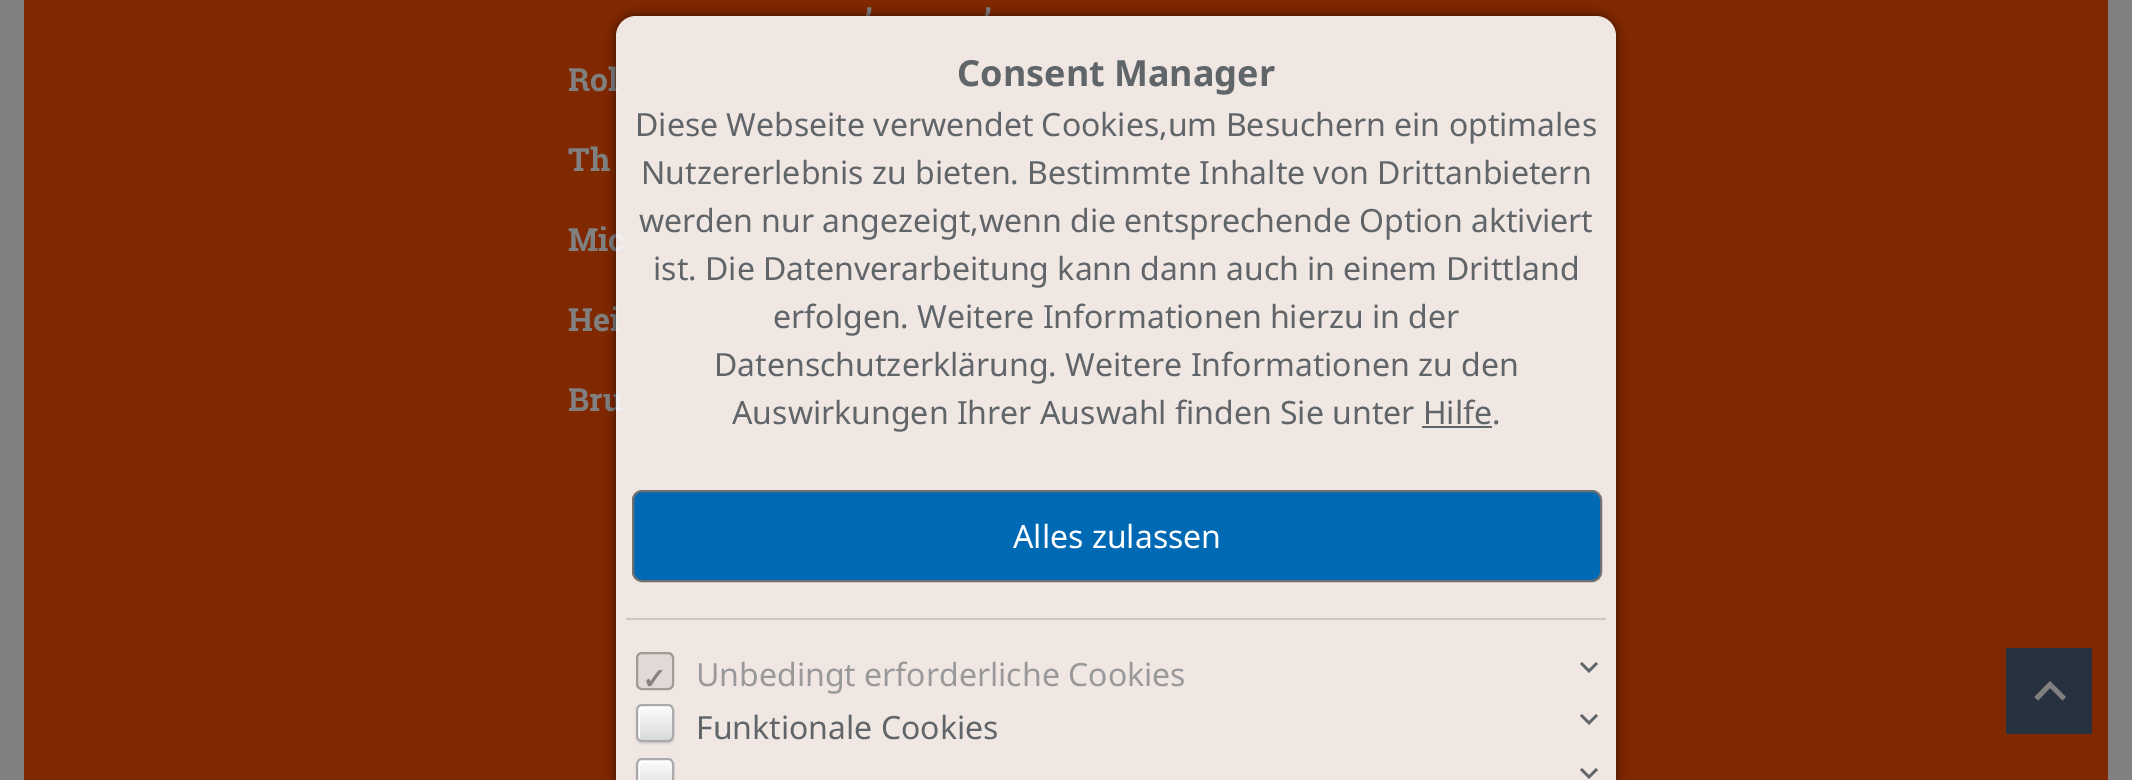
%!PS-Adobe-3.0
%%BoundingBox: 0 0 2132 780
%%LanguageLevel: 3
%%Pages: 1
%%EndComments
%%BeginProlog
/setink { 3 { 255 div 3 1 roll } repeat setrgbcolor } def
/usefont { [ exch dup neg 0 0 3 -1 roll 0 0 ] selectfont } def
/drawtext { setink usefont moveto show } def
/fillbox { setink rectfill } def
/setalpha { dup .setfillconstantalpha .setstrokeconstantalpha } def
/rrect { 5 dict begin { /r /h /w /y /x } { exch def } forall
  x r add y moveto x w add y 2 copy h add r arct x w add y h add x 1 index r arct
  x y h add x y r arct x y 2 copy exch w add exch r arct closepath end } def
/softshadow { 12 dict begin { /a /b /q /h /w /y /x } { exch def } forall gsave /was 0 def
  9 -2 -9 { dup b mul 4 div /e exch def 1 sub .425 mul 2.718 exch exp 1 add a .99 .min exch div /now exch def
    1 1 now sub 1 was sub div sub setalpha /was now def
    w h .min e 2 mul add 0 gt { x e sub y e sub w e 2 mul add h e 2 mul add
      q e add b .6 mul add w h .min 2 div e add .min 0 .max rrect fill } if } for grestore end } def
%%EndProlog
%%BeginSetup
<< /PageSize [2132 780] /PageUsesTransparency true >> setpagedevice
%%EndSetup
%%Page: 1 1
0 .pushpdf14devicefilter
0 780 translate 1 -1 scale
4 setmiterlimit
0 0 2132 780 128 128 128 fillbox
24 0 2084 780 128 40 0 fillbox
(,) 865 11 /RobotoSlab-Bold 32 128 128 128 drawtext
(,) 984 11 /RobotoSlab-Bold 32 128 128 128 drawtext
(Rol) 568 91 /RobotoSlab-Bold 32 128 128 128 drawtext
(Th) 568 171 /RobotoSlab-Bold 32 128 128 128 drawtext
(Mic) 568 251 /RobotoSlab-Bold 32 128 128 128 drawtext
(Hei) 568 331 /RobotoSlab-Bold 32 128 128 128 drawtext
(Bru) 568 411 /RobotoSlab-Bold 32 128 128 128 drawtext
gsave
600 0 moveto 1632 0 lineto 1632 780 lineto 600 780 lineto closepath 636 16 moveto 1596 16 lineto 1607 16 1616 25 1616 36 curveto 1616 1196 lineto 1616 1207 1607 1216 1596 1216 curveto 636 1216 lineto 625 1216 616 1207 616 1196 curveto 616 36 lineto 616 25 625 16 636 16 curveto closepath eoclip newpath
0 0 0 setink
616 16 1000 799 20 5 0.6 softshadow
grestore
0.9 setalpha
252 252 252 setink
616 16 1000 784 20 rrect fill
1 setalpha
(Consent Manager) 957 86 /NotoSans-Bold 36 96 101 105 drawtext
(Diese Webseite verwendet Cookies,um Besuchern ein optimales) 635 136 /NotoSans-Regular 32 96 101 105 drawtext
(Nutzererlebnis zu bieten. Bestimmte Inhalte von Drittanbietern) 641 184 /NotoSans-Regular 32 96 101 105 drawtext
(werden nur angezeigt,wenn die entsprechende Option aktiviert) 639 232 /NotoSans-Regular 32 96 101 105 drawtext
(ist. Die Datenverarbeitung kann dann auch in einem Drittland) 653 280 /NotoSans-Regular 32 96 101 105 drawtext
(erfolgen. Weitere Informationen hierzu in der) 773 328 /NotoSans-Regular 32 96 101 105 drawtext
(Datenschutzerklärung. Weitere Informationen zu den) 714 376 /NotoSans-Regular 32 96 101 105 drawtext
(Auswirkungen Ihrer Auswahl finden Sie unter Hilfe.) 732 424 /NotoSans-Regular 32 96 101 105 drawtext
1422 426 70 2 96 101 105 fillbox
0 105 180 setink
633 491 968 90 9 rrect gsave fill grestore
112 112 112 setink
2 setlinewidth
stroke
(Alles zulassen) 1013 548 /NotoSans-Regular 32 255 255 255 drawtext
626 618 980 2 204 198 196 fillbox
225 217 213 setink
636 652 38 38 6 rrect fill
0.5 setalpha
96 92 91 setink
637 653 36 36 5 rrect stroke
1 setalpha
(✓) 642 689 /DejaVuSans-Bold 29 135 130 128 drawtext
(Unbedingt erforderliche Cookies) 696 686 /NotoSans-Regular 32 153 153 154 drawtext
96 101 105 setink
1596 662 moveto 1598 664 lineto 1589 673 lineto 1580 664 lineto 1582 662 lineto 1589 669 lineto closepath 1596 714 moveto 1598 716 lineto 1589 725 lineto 1580 716 lineto 1582 714 lineto 1589 721 lineto closepath fill
0 0 0 setink
636 706 38 38 6 1 0.1 softshadow
gsave
636 704 38 38 6 rrect clip newpath
gsave 636 706 moveto 674 706 lineto 674 740 lineto 636 740 lineto closepath clip newpath
<< /ShadingType 2 /ColorSpace /DeviceRGB /Coords [655 706 655 740] /Extend [true true] /Function << /FunctionType 2 /Domain [0 1] /C0 [0.988 0.988 0.988] /C1 [0.855 0.855 0.855] /N 1 >> >> shfill grestore
grestore
255 255 255 setink
644 708 moveto 670 708 lineto 671.5 708.5 lineto 671 707 669.5 706 668 706 curveto 642 706 lineto 640 706 638 708 638 710 curveto 638 736 lineto 638 737.5 639 739 640.5 739.5 curveto 640 738 lineto 640 712 lineto 640 710 642 708 644 708 curveto closepath fill
170 170 170 setink
637 705 36 36 5 rrect stroke
(Funktionale Cookies) 696 739 /NotoSans-Regular 32 96 101 105 drawtext
0 0 0 setink
636 760 38 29 6 1 0.1 softshadow
gsave
636 758 38 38 6 rrect clip newpath
gsave 636 760 moveto 674 760 lineto 674 780 lineto 636 780 lineto closepath clip newpath
<< /ShadingType 2 /ColorSpace /DeviceRGB /Coords [655 760 655 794] /Extend [true true] /Function << /FunctionType 2 /Domain [0 1] /C0 [0.988 0.988 0.988] /C1 [0.855 0.855 0.855] /N 1 >> >> shfill grestore
grestore
255 255 255 setink
644 762 moveto 670 762 lineto 671.5 762.5 lineto 671 761 669.5 760 668 760 curveto 642 760 lineto 640 760 638 762 638 764 curveto 638 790 lineto 638 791.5 639 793 640.5 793.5 curveto 640 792 lineto 640 766 lineto 640 764 642 762 644 762 curveto closepath fill
170 170 170 setink
637 759 36 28 5 rrect stroke
96 101 105 setink
1596 768 moveto 1598 770 lineto 1589 779 lineto 1580 770 lineto 1582 768 lineto 1589 775 lineto closepath fill
2006 648 86 86 39 49 63 fillbox
128 128 128 setink
2062.5 700.5 moveto 2050 688 lineto 2038 700.5 lineto 2034.5 697 lineto 2050 681 lineto 2066 697 lineto closepath fill
.poppdf14devicefilter showpage
%%EOF
